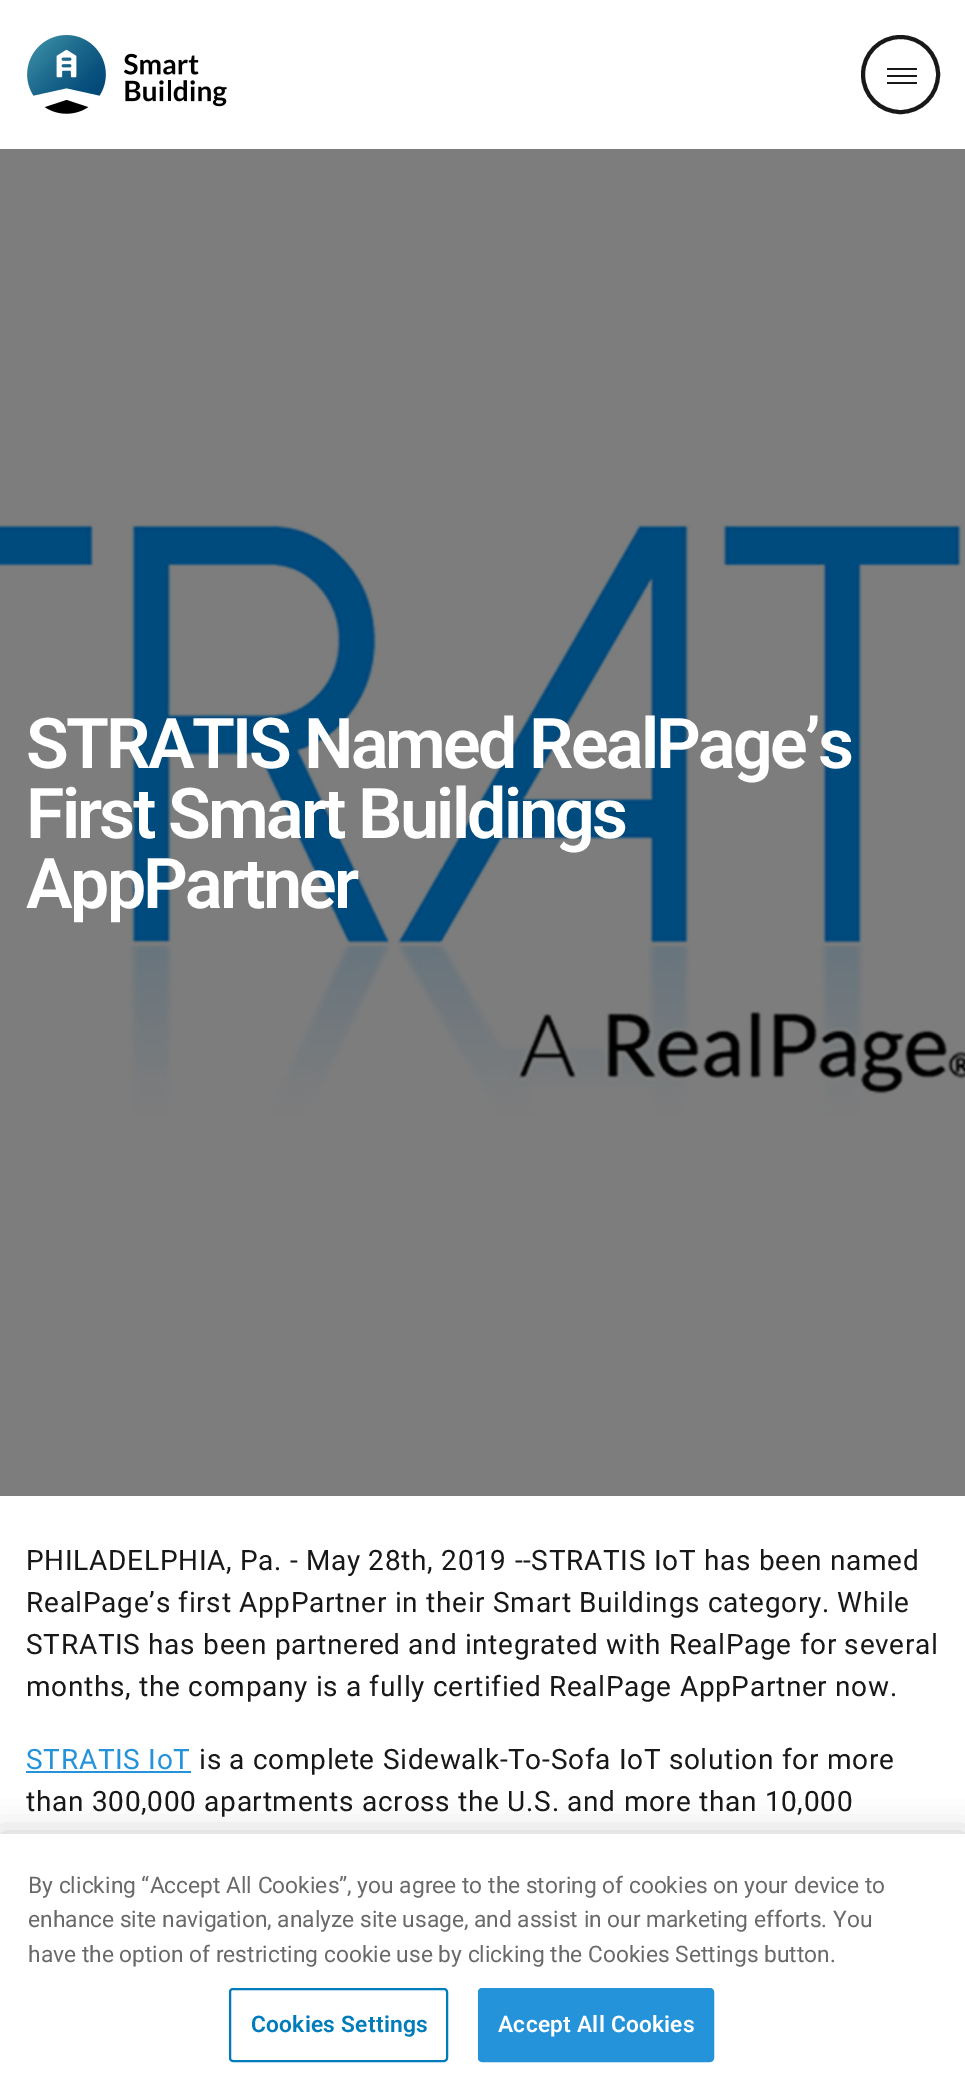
%!PS-Adobe-3.0
%%BoundingBox: 0 0 965 2089
%%LanguageLevel: 3
%%Pages: 1
%%EndComments
%%BeginProlog
/setink { 3 { 255 div 3 1 roll } repeat setrgbcolor } def
/usefont { [ exch dup neg 0 0 3 -1 roll 0 0 ] selectfont } def
/drawtext { setink usefont moveto show } def
/fillbox { setink rectfill } def
/setalpha { dup .setfillconstantalpha .setstrokeconstantalpha } def
/disc { newpath 0 360 arc closepath } def
/rrect { 5 dict begin { /r /h /w /y /x } { exch def } forall
  x r add y moveto x w add y 2 copy h add r arct x w add y h add x 1 index r arct
  x y h add x y r arct x y 2 copy exch w add exch r arct closepath end } def
/softshadow { 12 dict begin { /a /b /q /h /w /y /x } { exch def } forall gsave /was 0 def
  9 -2 -9 { dup b mul 4 div /e exch def 1 sub .425 mul 2.718 exch exp 1 add a .99 .min exch div /now exch def
    1 1 now sub 1 was sub div sub setalpha /was now def
    w h .min e 2 mul add 0 gt { x e sub y e sub w e 2 mul add h e 2 mul add
      q e add b .6 mul add w h .min 2 div e add .min 0 .max rrect fill } if } for grestore end } def
/drawimage { 5 dict begin { /h /w /y /x /name } { exch def } forall
  gsave x y translate w h scale
  w h 8 [w 0 0 h 0 0] name (r) file false 3 colorimage grestore end } def
%%EndProlog
%%BeginSetup
<< /PageSize [965 2089] /PageUsesTransparency true >> setpagedevice
%%EndSetup
%%Page: 1 1
0 .pushpdf14devicefilter
0 2089 translate 1 -1 scale
4 setmiterlimit
0 0 965 2089 255 255 255 fillbox
0 149 965 1347 125 125 125 fillbox
(assets/img1.rgb) 27 35 200 79 drawimage
24 24 24 setink
4 setlinewidth
900.5 74.5 37.5 disc stroke
887 68 30 2 24 24 24 fillbox
887 75 30 2 24 24 24 fillbox
887 82 30 2 24 24 24 fillbox
(assets/img2.rgb) 0 524 965 591 drawimage
/Roboto-SemiBold 70 usefont
255 255 255 setink
26 768 moveto -2.8 0 (STRATIS Named RealPage’s) ashow
26 838 moveto -2.8 0 (First Smart Buildings) ashow
26 908 moveto -2.8 0 (AppPartner) ashow
/Roboto-Regular 28 usefont
24 24 24 setink
26 1570 moveto 0.7 0 (PHILADELPHIA, Pa. - May 28th, 2019 --STRATIS IoT has been named) ashow
26 1612 moveto 0.7 0 (RealPage’s first AppPartner in their Smart Buildings category. While) ashow
26 1654 moveto 0.7 0 (STRATIS has been partnered and integrated with RealPage for several) ashow
26 1696 moveto 0.7 0 (months, the company is a fully certified RealPage AppPartner now.) ashow
37 147 218 setink
26 1769 moveto 0.7 0 (STRATIS IoT) ashow
26 1771 165 2 37 147 218 fillbox
24 24 24 setink
199 1769 moveto 0.7 0 (is a complete Sidewalk-To-Sofa IoT solution for more) ashow
26 1811 moveto 0.7 0 (than 300,000 apartments across the U.S. and more than 10,000) ashow
0 0 0 setink
0 1834 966 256 0 16 0.2 softshadow
0 1834 965 255 255 255 255 fillbox
(By clicking “Accept All Cookies”, you agree to the storing of cookies on your device to) 28 1893 /Roboto-Regular 22.75 105 105 105 drawtext
(enhance site navigation, analyze site usage, and assist in our marketing efforts. You) 28 1927 /Roboto-Regular 22.75 105 105 105 drawtext
(have the option of restricting cookie use by clicking the Cookies Settings button.) 28 1962 /Roboto-Regular 22.75 105 105 105 drawtext
0 124 186 setink
2 setlinewidth
230 1989 217 72 3 rrect stroke
/Roboto-SemiBold 22.75 usefont
251 2032 moveto 0.25 0 (Cookies Settings) ashow
37 147 218 setink
479 1989 234 72 3 rrect gsave fill grestore
stroke
255 255 255 setink
498 2032 moveto 0.25 0 (Accept All Cookies) ashow
.poppdf14devicefilter showpage
%%EOF
